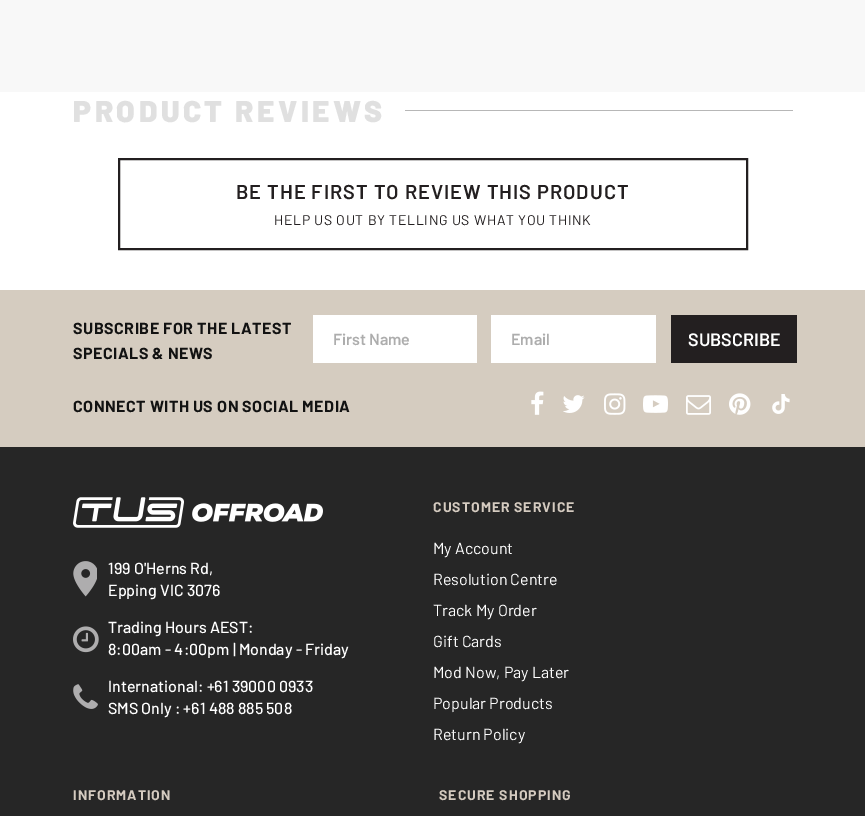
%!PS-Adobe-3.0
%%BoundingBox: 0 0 865 816
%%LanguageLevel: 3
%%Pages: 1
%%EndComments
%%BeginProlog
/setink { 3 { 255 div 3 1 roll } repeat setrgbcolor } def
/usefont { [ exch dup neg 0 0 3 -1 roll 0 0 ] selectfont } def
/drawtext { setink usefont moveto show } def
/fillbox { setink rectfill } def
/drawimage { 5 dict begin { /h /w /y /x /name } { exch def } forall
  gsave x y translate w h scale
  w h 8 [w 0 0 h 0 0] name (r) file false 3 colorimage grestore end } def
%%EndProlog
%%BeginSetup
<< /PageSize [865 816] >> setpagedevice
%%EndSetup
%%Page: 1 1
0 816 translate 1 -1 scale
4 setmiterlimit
0 0 865 816 255 255 255 fillbox
0 0 865 92 248 248 248 fillbox
/Barlow-Black 30 usefont
224 224 224 setink
73 122 moveto 3.5 0 (PRODUCT REVIEWS) ashow
405 110 388 1 183 183 183 fillbox
35 31 32 setink
2 setlinewidth
119 159 628 90 rectstroke
/Barlow-SemiBold 20 usefont
236 199 moveto 1 0 (BE THE FIRST TO REVIEW THIS PRODUCT) ashow
/Barlow-Regular 14 usefont
274 225 moveto 0.7 0 (HELP US OUT BY TELLING US WHAT YOU THINK) ashow
0 290 865 157 213 204 192 fillbox
/Barlow-Bold 16 usefont
18 18 18 setink
73 334 moveto 0.5 0 (SUBSCRIBE FOR THE LATEST) ashow
73 359 moveto 0.5 0 (SPECIALS & NEWS) ashow
313 315 164 48 255 255 255 fillbox
(First Name) 333 345 /Barlow-SemiBold 16 173 173 173 drawtext
491 315 165 48 255 255 255 fillbox
(Email) 511 345 /Barlow-SemiBold 16 173 173 173 drawtext
671 315 126 48 35 31 32 fillbox
(SUBSCRIBE) 688 346 /Barlow-SemiBold 18 255 255 255 drawtext
/Barlow-Bold 16 usefont
18 18 18 setink
73 412 moveto 0.5 0 (CONNECT WITH US ON SOCIAL MEDIA) ashow
(assets/img1.rgb) 531 391 13 24 drawimage
(assets/img2.rgb) 563 395 22 18 drawimage
(assets/img3.rgb) 604 393 22 22 drawimage
(assets/img4.rgb) 643 395 25 18 drawimage
(assets/img5.rgb) 686 395 25 20 drawimage
(assets/img6.rgb) 729 393 22 22 drawimage
(assets/img7.rgb) 772 394 18 20 drawimage
0 447 865 369 38 38 38 fillbox
(assets/img8.rgb) 73 497 250 31 drawimage
(assets/img9.rgb) 73 561 24 36 drawimage
(199 O'Herns Rd,) 108 574 /Barlow-Medium 16 255 255 255 drawtext
(Epping VIC 3076) 108 596 /Barlow-Medium 16 255 255 255 drawtext
(assets/img10.rgb) 73 626 26 27 drawimage
(Trading Hours AEST:) 108 633 /Barlow-Medium 16 255 255 255 drawtext
(8:00am - 4:00pm | Monday - Friday) 108 655 /Barlow-Medium 16 255 255 255 drawtext
(assets/img11.rgb) 73 684 25 25 drawimage
(International: +61 39000 0933) 108 692 /Barlow-Medium 16 255 255 255 drawtext
(SMS Only : +61 488 885 508) 108 714 /Barlow-Medium 16 255 255 255 drawtext
/Barlow-Bold 14 usefont
213 203 192 setink
433 512 moveto 1 0 (CUSTOMER SERVICE) ashow
(My Account) 433 554 /Barlow-Regular 16 255 255 255 drawtext
(Resolution Centre) 433 585 /Barlow-Regular 16 255 255 255 drawtext
(Track My Order) 433 616 /Barlow-Regular 16 255 255 255 drawtext
(Gift Cards) 433 647 /Barlow-Regular 16 255 255 255 drawtext
(Mod Now, Pay Later) 433 678 /Barlow-Regular 16 255 255 255 drawtext
(Popular Products) 433 709 /Barlow-Regular 16 255 255 255 drawtext
(Return Policy) 433 740 /Barlow-Regular 16 255 255 255 drawtext
/Barlow-Bold 14 usefont
213 203 192 setink
73 800 moveto 1 0 (INFORMATION) ashow
439 800 moveto 1 0 (SECURE SHOPPING) ashow
showpage
%%EOF
